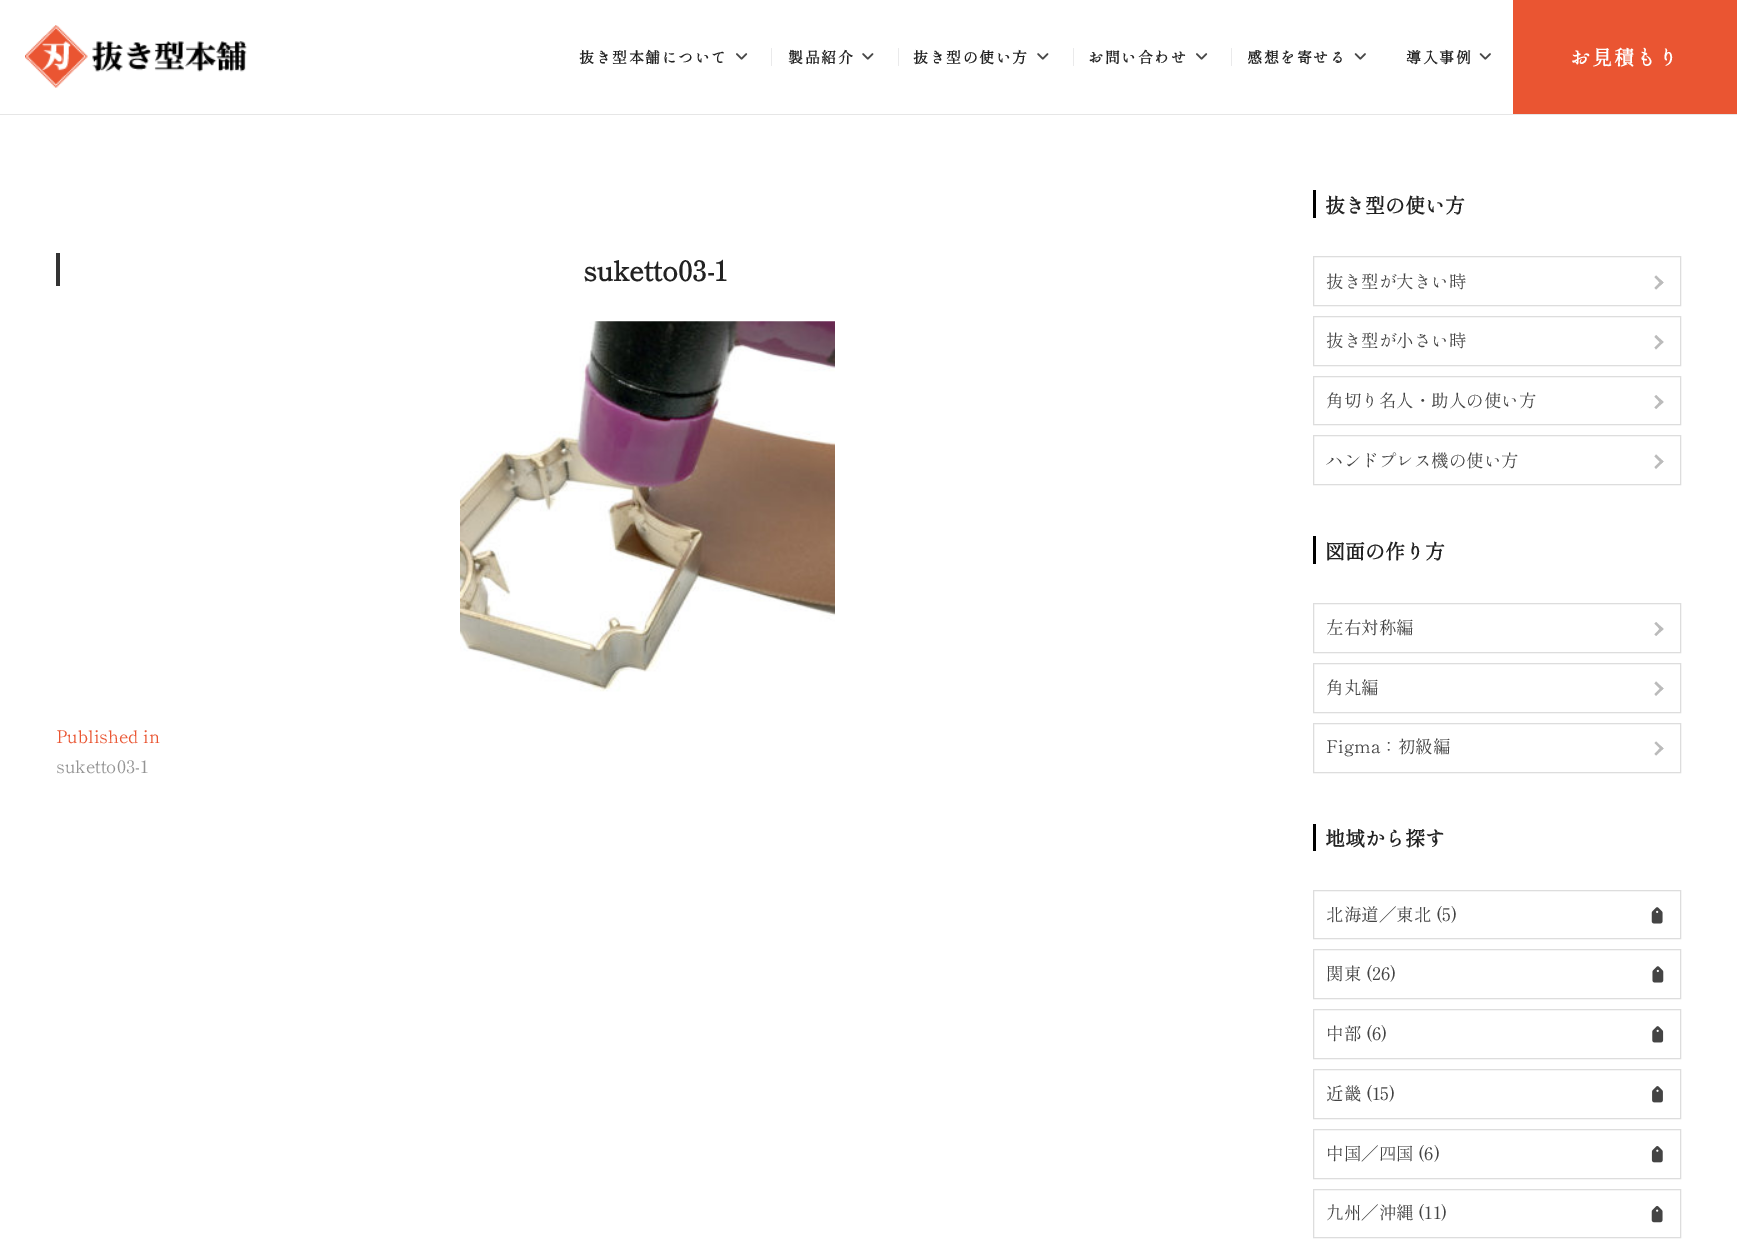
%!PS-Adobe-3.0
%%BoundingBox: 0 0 1737 1252
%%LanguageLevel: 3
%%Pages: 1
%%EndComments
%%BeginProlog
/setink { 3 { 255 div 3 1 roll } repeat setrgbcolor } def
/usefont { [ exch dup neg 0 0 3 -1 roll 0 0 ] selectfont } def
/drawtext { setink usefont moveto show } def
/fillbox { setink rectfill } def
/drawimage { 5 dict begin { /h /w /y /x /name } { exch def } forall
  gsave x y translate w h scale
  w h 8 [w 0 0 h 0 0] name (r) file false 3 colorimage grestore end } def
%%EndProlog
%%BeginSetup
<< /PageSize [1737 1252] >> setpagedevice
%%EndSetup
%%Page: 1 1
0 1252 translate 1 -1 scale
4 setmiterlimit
0 0 1737 1252 255 255 255 fillbox
0 114 1737 1 230 230 230 fillbox
(assets/img1.rgb) 25 25 222 63 drawimage
/ShipporiMincho-Bold 15 usefont
34 34 34 setink
579 63 moveto 1.5 0 (抜き型本舗について) ashow
(assets/img2.rgb) 736 53 12 7 drawimage
771 48 1 18 234 234 235 fillbox
34 34 34 setink
788 63 moveto 1.5 0 (製品紹介) ashow
(assets/img3.rgb) 862 53 12 7 drawimage
898 48 1 18 234 234 235 fillbox
34 34 34 setink
913 63 moveto 1.5 0 (抜き型の使い方) ashow
(assets/img3.rgb) 1037 53 12 7 drawimage
1073 48 1 18 234 234 235 fillbox
34 34 34 setink
1088 63 moveto 1.5 0 (お問い合わせ) ashow
(assets/img2.rgb) 1196 53 12 7 drawimage
1231 48 1 18 234 234 235 fillbox
34 34 34 setink
1247 63 moveto 1.5 0 (感想を寄せる) ashow
(assets/img4.rgb) 1354 53 12 7 drawimage
1406 63 moveto 1.5 0 (導入事例) ashow
(assets/img4.rgb) 1479 53 12 7 drawimage
1513 0 224 114 234 85 50 fillbox
/ShipporiMincho-Bold 20 usefont
255 255 255 setink
1570 65 moveto 2 0 (お見積もり) ashow
56 253 4 33 51 51 51 fillbox
(suketto03-1) 583 281 /ShipporiMincho-Bold 27.5 34 34 34 drawtext
(assets/img5.rgb) 460 321 375 371 drawimage
(Published in) 56 743 /ShipporiMincho-Regular 17.5 234 85 50 drawtext
(suketto03-1) 56 773 /ShipporiMincho-Regular 17.5 148 148 148 drawtext
1313 190 3 28 0 0 0 fillbox
(抜き型の使い方) 1325 213 /ShipporiMincho-Bold 20 34 34 34 drawtext
221 221 221 setink
1313.5 256.5 367 49 rectstroke
(抜き型が大きい時) 1326 288 /ShipporiMincho-Regular 17.5 68 68 68 drawtext
187 187 187 setink
1656 275.5 moveto 1663.5 282.5 lineto 1661.5 284.5 lineto 1654.5 277 lineto closepath fill
1661.5 280.5 moveto 1663.5 282.5 lineto 1656 289.5 lineto 1654.5 288 lineto closepath fill
221 221 221 setink
1313.5 316.5 367 49 rectstroke
(抜き型が小さい時) 1326 347 /ShipporiMincho-Regular 17.5 68 68 68 drawtext
187 187 187 setink
1656 335 moveto 1663.5 342 lineto 1661.5 344 lineto 1654.5 337 lineto closepath fill
1661.5 340.5 moveto 1663.5 342 lineto 1656 349.5 lineto 1654.5 347.5 lineto closepath fill
221 221 221 setink
1313.5 376.5 367 48 rectstroke
(角切り名人・助人の使い方) 1326 407 /ShipporiMincho-Regular 17.5 68 68 68 drawtext
187 187 187 setink
1656 395 moveto 1663.5 402 lineto 1661.5 404 lineto 1654.5 396.5 lineto closepath fill
1661.5 400 moveto 1663.5 402 lineto 1656 409 lineto 1654.5 407.5 lineto closepath fill
221 221 221 setink
1313.5 435.5 367 49 rectstroke
(ハンドプレス機の使い方) 1326 467 /ShipporiMincho-Regular 17.5 68 68 68 drawtext
187 187 187 setink
1656 454.5 moveto 1663.5 461.5 lineto 1661.5 463.5 lineto 1654.5 456.5 lineto closepath fill
1661.5 460 moveto 1663.5 461.5 lineto 1656 469 lineto 1654.5 467 lineto closepath fill
1313 536 3 28 0 0 0 fillbox
(図面の作り方) 1325 559 /ShipporiMincho-Bold 20 34 34 34 drawtext
221 221 221 setink
1313.5 603.5 367 49 rectstroke
(左右対称編) 1326 634 /ShipporiMincho-Regular 17.5 68 68 68 drawtext
187 187 187 setink
1656 622 moveto 1663.5 629 lineto 1661.5 631 lineto 1654.5 623.5 lineto closepath fill
1661.5 627 moveto 1663.5 629 lineto 1656 636 lineto 1654.5 634.5 lineto closepath fill
221 221 221 setink
1313.5 663.5 367 49 rectstroke
(角丸編) 1326 694 /ShipporiMincho-Regular 17.5 68 68 68 drawtext
187 187 187 setink
1656 681.5 moveto 1663.5 688.5 lineto 1661.5 690.5 lineto 1654.5 683.5 lineto closepath fill
1661.5 687 moveto 1663.5 688.5 lineto 1656 696 lineto 1654.5 694 lineto closepath fill
221 221 221 setink
1313.5 723.5 367 49 rectstroke
(Figma：初級編) 1326 753 /ShipporiMincho-Regular 17.5 68 68 68 drawtext
187 187 187 setink
1656 741.5 moveto 1663.5 748.5 lineto 1661.5 750 lineto 1654.5 743 lineto closepath fill
1661.5 746.5 moveto 1663.5 748.5 lineto 1656 755.5 lineto 1654.5 754 lineto closepath fill
1313 824 3 27 0 0 0 fillbox
(地域から探す) 1325 846 /ShipporiMincho-Bold 20 34 34 34 drawtext
221 221 221 setink
1313.5 890.5 367 48 rectstroke
(北海道／東北 \(5\)) 1326 921 /ShipporiMincho-Regular 17.5 68 68 68 drawtext
(assets/img6.rgb) 1651 907 12 17 drawimage
221 221 221 setink
1313.5 949.5 367 49 rectstroke
(関東 \(26\)) 1326 980 /ShipporiMincho-Regular 17.5 68 68 68 drawtext
(assets/img7.rgb) 1652 966 12 17 drawimage
221 221 221 setink
1313.5 1009.5 367 49 rectstroke
(中部 \(6\)) 1326 1040 /ShipporiMincho-Regular 17.5 68 68 68 drawtext
(assets/img8.rgb) 1652 1026 12 17 drawimage
221 221 221 setink
1313.5 1069.5 367 49 rectstroke
(近畿 \(15\)) 1326 1100 /ShipporiMincho-Regular 17.5 68 68 68 drawtext
(assets/img9.rgb) 1652 1086 11 17 drawimage
221 221 221 setink
1313.5 1129.5 367 49 rectstroke
(中国／四国 \(6\)) 1326 1160 /ShipporiMincho-Regular 17.5 68 68 68 drawtext
(assets/img10.rgb) 1651 1146 12 17 drawimage
221 221 221 setink
1313.5 1189.5 367 48 rectstroke
(九州／沖縄 \(11\)) 1326 1219 /ShipporiMincho-Regular 17.5 68 68 68 drawtext
(assets/img11.rgb) 1651 1205 12 18 drawimage
showpage
%%EOF
